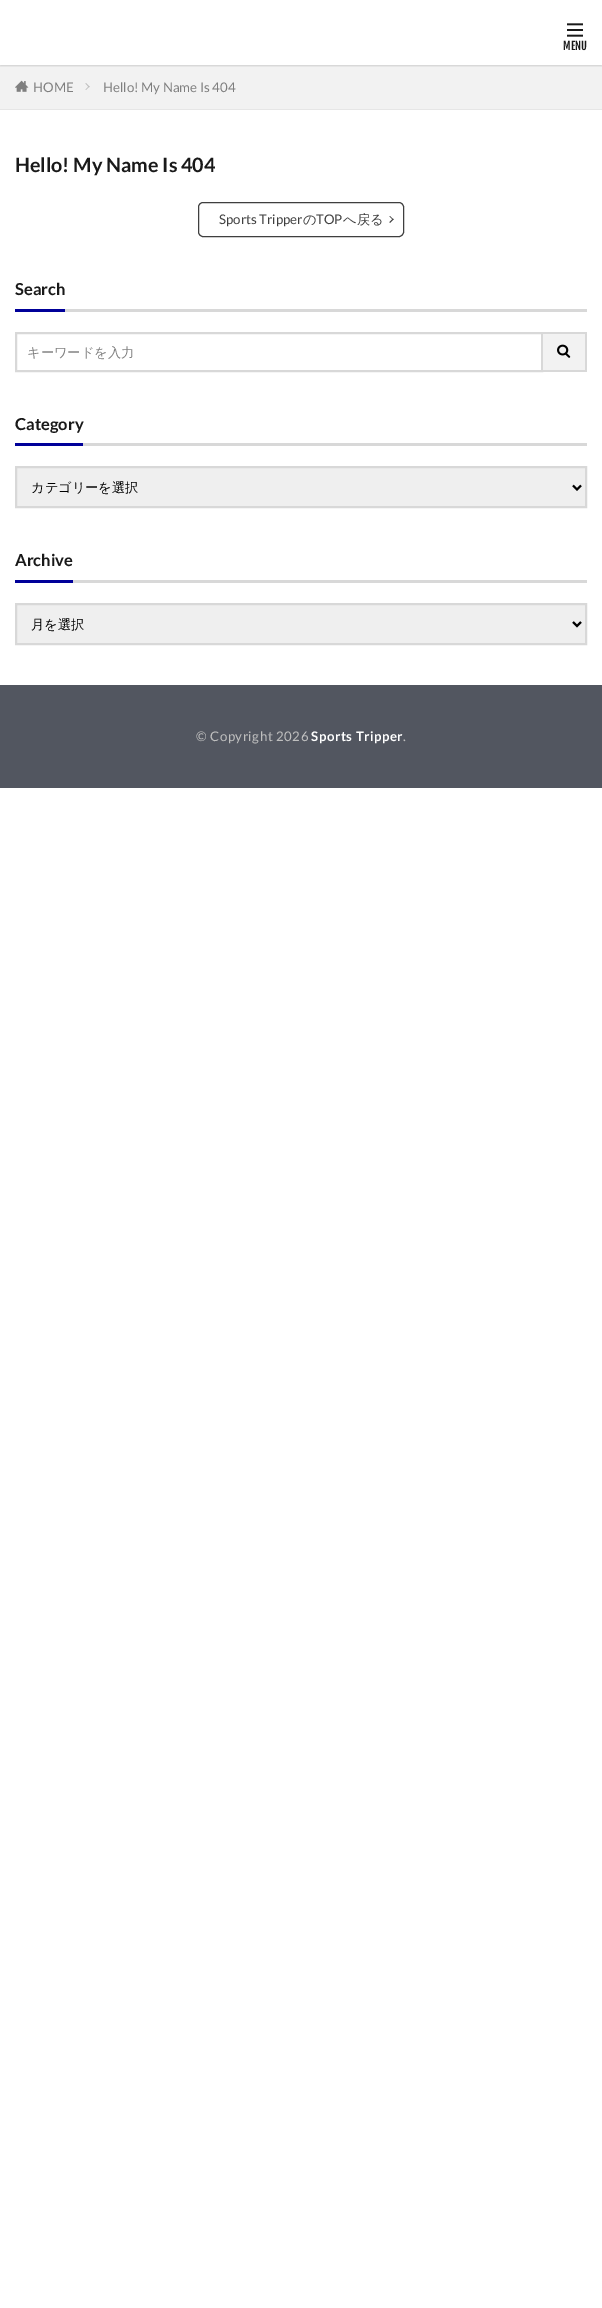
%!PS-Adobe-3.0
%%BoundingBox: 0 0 602 2308
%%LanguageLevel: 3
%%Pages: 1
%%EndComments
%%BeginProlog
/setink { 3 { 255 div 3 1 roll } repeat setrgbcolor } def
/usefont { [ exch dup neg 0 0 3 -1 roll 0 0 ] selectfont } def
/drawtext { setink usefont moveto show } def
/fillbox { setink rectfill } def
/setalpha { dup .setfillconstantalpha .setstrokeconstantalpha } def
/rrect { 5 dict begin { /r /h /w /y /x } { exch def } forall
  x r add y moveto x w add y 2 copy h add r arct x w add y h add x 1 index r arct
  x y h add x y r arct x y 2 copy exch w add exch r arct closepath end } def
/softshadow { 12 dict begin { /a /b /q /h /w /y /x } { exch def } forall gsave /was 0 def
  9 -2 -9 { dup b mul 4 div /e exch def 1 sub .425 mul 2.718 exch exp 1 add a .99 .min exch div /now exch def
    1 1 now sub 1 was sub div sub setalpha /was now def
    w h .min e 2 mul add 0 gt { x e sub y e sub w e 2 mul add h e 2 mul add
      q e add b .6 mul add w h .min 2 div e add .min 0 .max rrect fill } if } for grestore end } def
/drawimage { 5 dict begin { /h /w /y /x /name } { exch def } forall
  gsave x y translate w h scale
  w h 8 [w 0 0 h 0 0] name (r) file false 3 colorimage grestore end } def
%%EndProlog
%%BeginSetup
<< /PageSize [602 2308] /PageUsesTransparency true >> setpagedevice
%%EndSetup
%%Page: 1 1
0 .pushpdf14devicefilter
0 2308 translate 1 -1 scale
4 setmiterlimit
0 0 602 2308 255 255 255 fillbox
0 65 602 44 242 242 242 fillbox
gsave
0 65 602 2 rectclip
0 0 0 setink
0 1 602 65 0 1 0.15 softshadow
grestore
(assets/img1.rgb) 567 23 16 14 drawimage
(MENU) 563 50 /FjallaOne-Regular 11 25 25 25 drawtext
0 109 602 1 230 230 230 fillbox
(assets/img2.rgb) 15 80 14 12 drawimage
(HOME) 33 92 /Lato-Regular 13.25 127 127 127 drawtext
191 191 191 setink
86 83 moveto 89.5 86.5 lineto 89 87.5 lineto 85.5 83.5 lineto closepath fill
89 86 moveto 89.5 86.5 lineto 86 90 lineto 85.5 89.5 lineto closepath fill
(Hello! My Name Is 404) 103 92 /Lato-Regular 13.25 127 127 127 drawtext
(Hello! My Name Is 404) 15 172 /Lato-Bold 19.75 25 25 25 drawtext
63 63 63 setink
198.5 202.5 205 34 4.5 rrect stroke
(Sports Tripper) 219 224 /Lato-Regular 13.25 63 63 63 drawtext
(の) 303 224 /WenQuanYiZenHei-Medium 13.25 63 63 63 drawtext
(TOP) 316 224 /Lato-Regular 13.25 63 63 63 drawtext
(へ戻る) 343 224 /WenQuanYiZenHei-Medium 13.25 63 63 63 drawtext
390 216 moveto 393.5 219.5 lineto 393 220 lineto 389.5 216.5 lineto closepath fill
393 218.5 moveto 393.5 219.5 lineto 390 223 lineto 389.5 222 lineto closepath fill
(Search) 15 295 /Lato-Bold 16.5 25 25 25 drawtext
15 309 50 3 0 0 153 fillbox
65 309 522 3 216 216 216 fillbox
2 setlinewidth
16 333 526 38 rectstroke
(キーワードを入力) 27 357 /WenQuanYiZenHei-Medium 13.25 127 127 127 drawtext
543 334 42 36 242 242 242 fillbox
543 332 44 2 216 216 216 fillbox
585 332 2 40 216 216 216 fillbox
543 370 44 2 216 216 216 fillbox
(assets/img3.rgb) 557 344 14 14 drawimage
(Category) 15 430 /Lato-Bold 16.5 25 25 25 drawtext
15 443 68 3 0 0 153 fillbox
83 443 504 3 216 216 216 fillbox
239 239 239 setink
16 467 moveto 586 467 lineto 586 507 lineto 16 507 lineto closepath gsave fill grestore
216 216 216 setink
stroke
0 0 0 setink
573 485.5 moveto 577 489.5 lineto 581 485.5 lineto stroke
(カテゴリーを選択) 31 492 /WenQuanYiZenHei-Medium 13.25 0 0 0 drawtext
(Archive) 15 566 /Lato-Bold 16.5 25 25 25 drawtext
15 580 58 3 0 0 153 fillbox
73 580 514 3 216 216 216 fillbox
239 239 239 setink
16 604 moveto 586 604 lineto 586 644 lineto 16 644 lineto closepath gsave fill grestore
216 216 216 setink
stroke
0 0 0 setink
573 622 moveto 577 626 lineto 581 622 lineto stroke
(月を選択) 31 629 /WenQuanYiZenHei-Medium 13.25 0 0 0 drawtext
0 685 602 103 82 86 96 fillbox
/Lato-Regular 13.25 usefont
191 191 191 setink
196 741 moveto 0.5 0 (© Copyright 2026) ashow
/Lato-Bold 13.25 usefont
255 255 255 setink
311 741 moveto 0.5 0 (Sports Tripper) ashow
/Lato-Regular 13.25 usefont
191 191 191 setink
403 741 moveto 0.5 0 (.) ashow
.poppdf14devicefilter showpage
%%EOF
